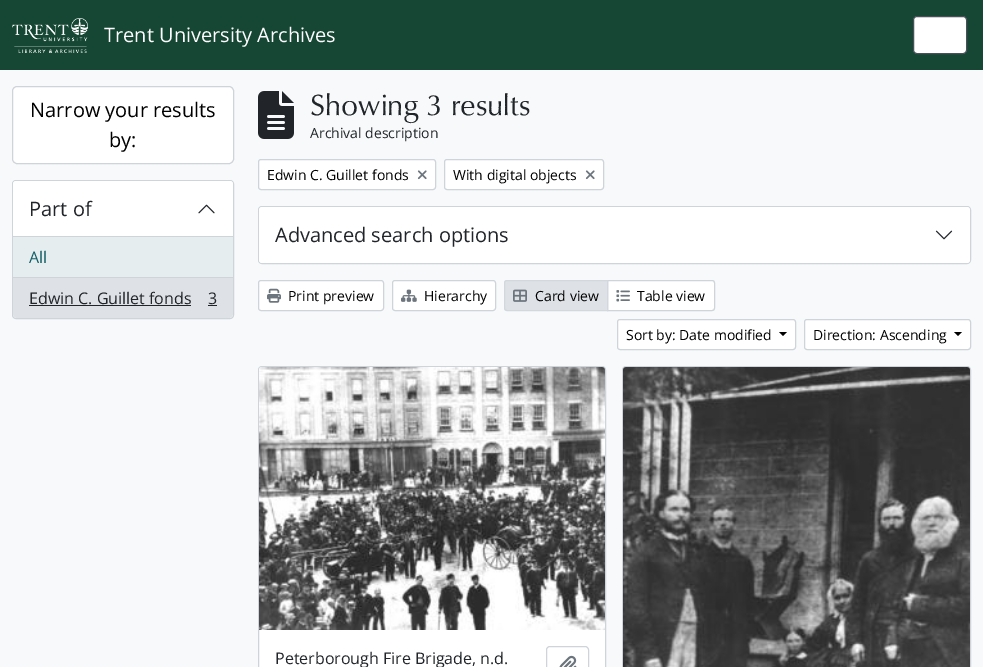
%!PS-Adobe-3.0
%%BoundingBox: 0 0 983 667
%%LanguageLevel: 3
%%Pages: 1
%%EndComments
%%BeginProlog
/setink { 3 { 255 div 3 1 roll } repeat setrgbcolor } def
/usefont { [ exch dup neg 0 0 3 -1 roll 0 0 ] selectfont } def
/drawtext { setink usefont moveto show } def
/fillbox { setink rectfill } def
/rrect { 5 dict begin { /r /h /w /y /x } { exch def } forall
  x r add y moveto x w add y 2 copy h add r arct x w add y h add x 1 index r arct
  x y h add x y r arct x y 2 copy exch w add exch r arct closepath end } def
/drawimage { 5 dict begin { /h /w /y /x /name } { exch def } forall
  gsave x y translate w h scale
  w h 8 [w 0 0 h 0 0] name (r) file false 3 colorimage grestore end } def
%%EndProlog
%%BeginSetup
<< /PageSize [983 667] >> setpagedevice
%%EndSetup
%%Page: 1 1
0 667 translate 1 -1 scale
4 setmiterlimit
0 0 983 667 248 249 250 fillbox
0 0 983 70 21 71 52 fillbox
(assets/img1.rgb) 12 18 76 35 drawimage
(Trent University Archives) 104 42 /OpenSans-Regular 20 255 255 255 drawtext
913.5 16.5 53 37 3.5 rrect gsave fill grestore
73 80 87 setink
stroke
255 255 255 setink
12.5 86.5 221 77 4.5 rrect gsave fill grestore
206 212 218 setink
stroke
(Narrow your results) 30 117 /OpenSans-Regular 20 0 0 0 drawtext
(by:) 109 147 /OpenSans-Regular 20 0 0 0 drawtext
255 255 255 setink
12.5 180.5 221 138 3.5 rrect gsave fill grestore
206 212 218 setink
stroke
255 255 255 setink
16 181 moveto 230 181 lineto 231.5 181 233 182.5 233 184 curveto 233 237 lineto 13 237 lineto 13 184 lineto 13 182.5 14.5 181 16 181 curveto closepath fill
13 236 220 1 206 212 218 fillbox
(Part of) 29 216 /OpenSans-Regular 20 33 37 41 drawtext
(assets/img2.rgb) 198 204 17 10 drawimage
13 237 220 40 229 237 238 fillbox
13 277 220 1 206 212 218 fillbox
(All) 29 263 /OpenSans-Regular 16 17 94 103 drawtext
222 226 230 setink
13 278 moveto 233 278 lineto 233 314 lineto 233 316 231 318 229 318 curveto 17 318 lineto 15 318 13 316 13 314 curveto closepath fill
(Edwin C. Guillet fonds) 29 304 /OpenSans-Regular 16 33 37 41 drawtext
29 305 162 1 33 37 41 fillbox
(3) 208 304 /OpenSans-Regular 16 33 37 41 drawtext
208 305 9 1 33 37 41 fillbox
(assets/img3.rgb) 258 91 36 48 drawimage
(Showing 3 results) 310 115 /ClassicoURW-Regular 30 33 37 41 drawtext
(Archival description) 310 138 /OpenSans-Regular 14 33 37 41 drawtext
255 255 255 setink
258.5 159.5 177 30 2.5 rrect gsave fill grestore
206 212 218 setink
stroke
(Edwin C. Guillet fonds) 267 180 /OpenSans-Regular 14 0 0 0 drawtext
(assets/img4.rgb) 417 170 10 10 drawimage
255 255 255 setink
444.5 159.5 159 30 2.5 rrect gsave fill grestore
206 212 218 setink
stroke
(With digital objects) 453 180 /OpenSans-Regular 14 0 0 0 drawtext
(assets/img4.rgb) 585 170 10 10 drawimage
206 212 218 setink
258.5 206.5 712 57 3.5 rrect stroke
255 255 255 setink
259 207 711 56 3 rrect fill
(Advanced search options) 275 242 /OpenSans-Regular 20 33 37 41 drawtext
(assets/img5.rgb) 935 230 18 10 drawimage
255 255 255 setink
258.5 280.5 125 30 2.5 rrect gsave fill grestore
206 212 218 setink
stroke
(assets/img6.rgb) 267 288 14 15 drawimage
(Print preview) 288 301 /OpenSans-Regular 14 0 0 0 drawtext
255 255 255 setink
392.5 280.5 103 30 2.5 rrect gsave fill grestore
206 212 218 setink
stroke
(assets/img7.rgb) 401 289 16 13 drawimage
(Hierarchy) 424 301 /OpenSans-Regular 14 0 0 0 drawtext
255 255 255 setink
607.5 280.5 moveto 712 280.5 lineto 713.5 280.5 714.5 281.5 714.5 283 curveto 714.5 308 lineto 714.5 309.5 713.5 310.5 712 310.5 curveto 607.5 310.5 lineto closepath gsave fill grestore
206 212 218 setink
stroke
222 226 230 setink
507 280.5 moveto 607.5 280.5 lineto 607.5 310.5 lineto 507 310.5 lineto 505.5 310.5 504.5 309.5 504.5 308 curveto 504.5 283 lineto 504.5 281.5 505.5 280.5 507 280.5 curveto closepath gsave fill grestore
211 216 222 setink
stroke
(assets/img8.rgb) 513 289 14 13 drawimage
(Card view) 535 301 /OpenSans-Regular 14 0 0 0 drawtext
(assets/img9.rgb) 616 290 14 12 drawimage
(Table view) 637 301 /OpenSans-Regular 14 0 0 0 drawtext
255 255 255 setink
617.5 319.5 178 30 2.5 rrect gsave fill grestore
206 212 218 setink
stroke
(Sort by: Date modified) 626 340 /OpenSans-Regular 14 0 0 0 drawtext
779 332 moveto 787 332 lineto 783 336 lineto closepath fill
255 255 255 setink
804.5 319.5 166 30 2.5 rrect gsave fill grestore
206 212 218 setink
stroke
(Direction: Ascending) 813 340 /OpenSans-Regular 14 0 0 0 drawtext
954 332 moveto 962 332 lineto 958 336 lineto closepath fill
255 255 255 setink
258.5 366.5 347 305 3.5 rrect gsave fill grestore
206 212 218 setink
stroke
(assets/img10.rgb) 259 367 346 263 drawimage
(Peterborough Fire Brigade, n.d.) 275 664 /OpenSans-Regular 16 33 37 41 drawtext
206 212 218 setink
546.5 646.5 42 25 3.5 rrect stroke
(assets/img11.rgb) 559 655 18 12 drawimage
622.5 366.5 348 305 3.5 rrect stroke
(assets/img12.rgb) 623 367 347 300 drawimage
showpage
%%EOF
